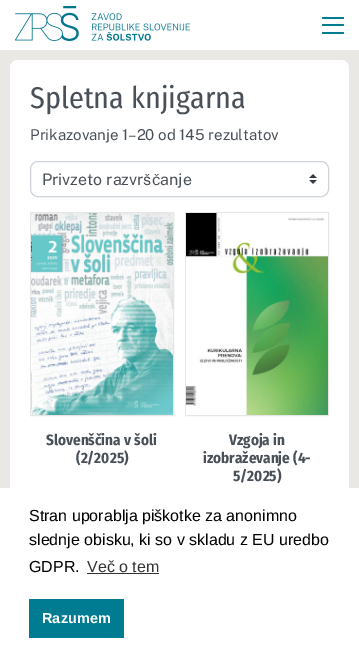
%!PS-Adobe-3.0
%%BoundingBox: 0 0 359 654
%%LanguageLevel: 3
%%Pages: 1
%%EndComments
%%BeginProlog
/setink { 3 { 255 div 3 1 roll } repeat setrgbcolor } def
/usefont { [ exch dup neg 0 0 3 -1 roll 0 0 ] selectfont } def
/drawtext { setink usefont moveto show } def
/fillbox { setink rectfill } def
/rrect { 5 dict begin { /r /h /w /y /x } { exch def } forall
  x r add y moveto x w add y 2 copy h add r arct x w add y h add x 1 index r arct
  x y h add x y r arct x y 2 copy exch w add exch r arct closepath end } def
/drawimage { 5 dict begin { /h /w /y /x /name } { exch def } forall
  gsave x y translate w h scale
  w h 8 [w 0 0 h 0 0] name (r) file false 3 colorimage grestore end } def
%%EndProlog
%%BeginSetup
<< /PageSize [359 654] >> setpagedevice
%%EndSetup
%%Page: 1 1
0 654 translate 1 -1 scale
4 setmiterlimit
0 0 359 654 234 232 228 fillbox
0 0 359 50 255 255 255 fillbox
(assets/img1.rgb) 15 6 175 35 drawimage
0 124 146 setink
322 24 22 2 1 rrect fill
322 17 22 2 1 rrect fill
322 32 22 2 1 rrect fill
255 255 255 setink
10 60 339 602 8 rrect fill
(Spletna knjigarna) 30 108 /FiraSansCondensed-Regular 30 73 80 87 drawtext
(Prikazovanje 1–20 od 145 rezultatov) 30 140 /PublicSans-Thin 15 73 80 87 drawtext
(assets/img2.rgb) 309 174 8 10 drawimage
206 212 218 setink
30.5 161.5 298 35 7.5 rrect stroke
(Privzeto razvrščanje) 42 185 /PublicSans-Thin 16 73 80 87 drawtext
230 230 230 setink
30.5 212.5 143 203 rectstroke
(assets/img3.rgb) 31 213 142 202 drawimage
(Slovenščina v šoli) 46 445 /FiraSansCondensed-Bold 15 73 80 87 drawtext
(\(2/2025\)) 76 463 /FiraSansCondensed-Bold 15 73 80 87 drawtext
230 230 230 setink
185.5 212.5 143 203 rectstroke
(assets/img4.rgb) 186 213 142 202 drawimage
(Vzgoja in) 229 445 /FiraSansCondensed-Bold 15 73 80 87 drawtext
(izobraževanje \(4-) 203 463 /FiraSansCondensed-Bold 15 73 80 87 drawtext
(5/2025\)) 233 481 /FiraSansCondensed-Bold 15 73 80 87 drawtext
0 488 359 166 255 255 255 fillbox
(Stran uporablja piškotke za anonimno) 29 521 /LiberationSans-Regular 16 0 0 0 drawtext
(slednje obisku, ki so v skladu z EU uredbo) 29 545 /LiberationSans-Regular 16 0 0 0 drawtext
(GDPR.) 29 572 /LiberationSans-Regular 16 0 0 0 drawtext
(Več o tem) 87 572 /LiberationSans-Regular 16 51 51 51 drawtext
87 573 72 1 51 51 51 fillbox
29 599 95 39 0 124 146 fillbox
(Razumem) 42 623 /LiberationSans-Bold 14.5 255 255 255 drawtext
showpage
%%EOF
